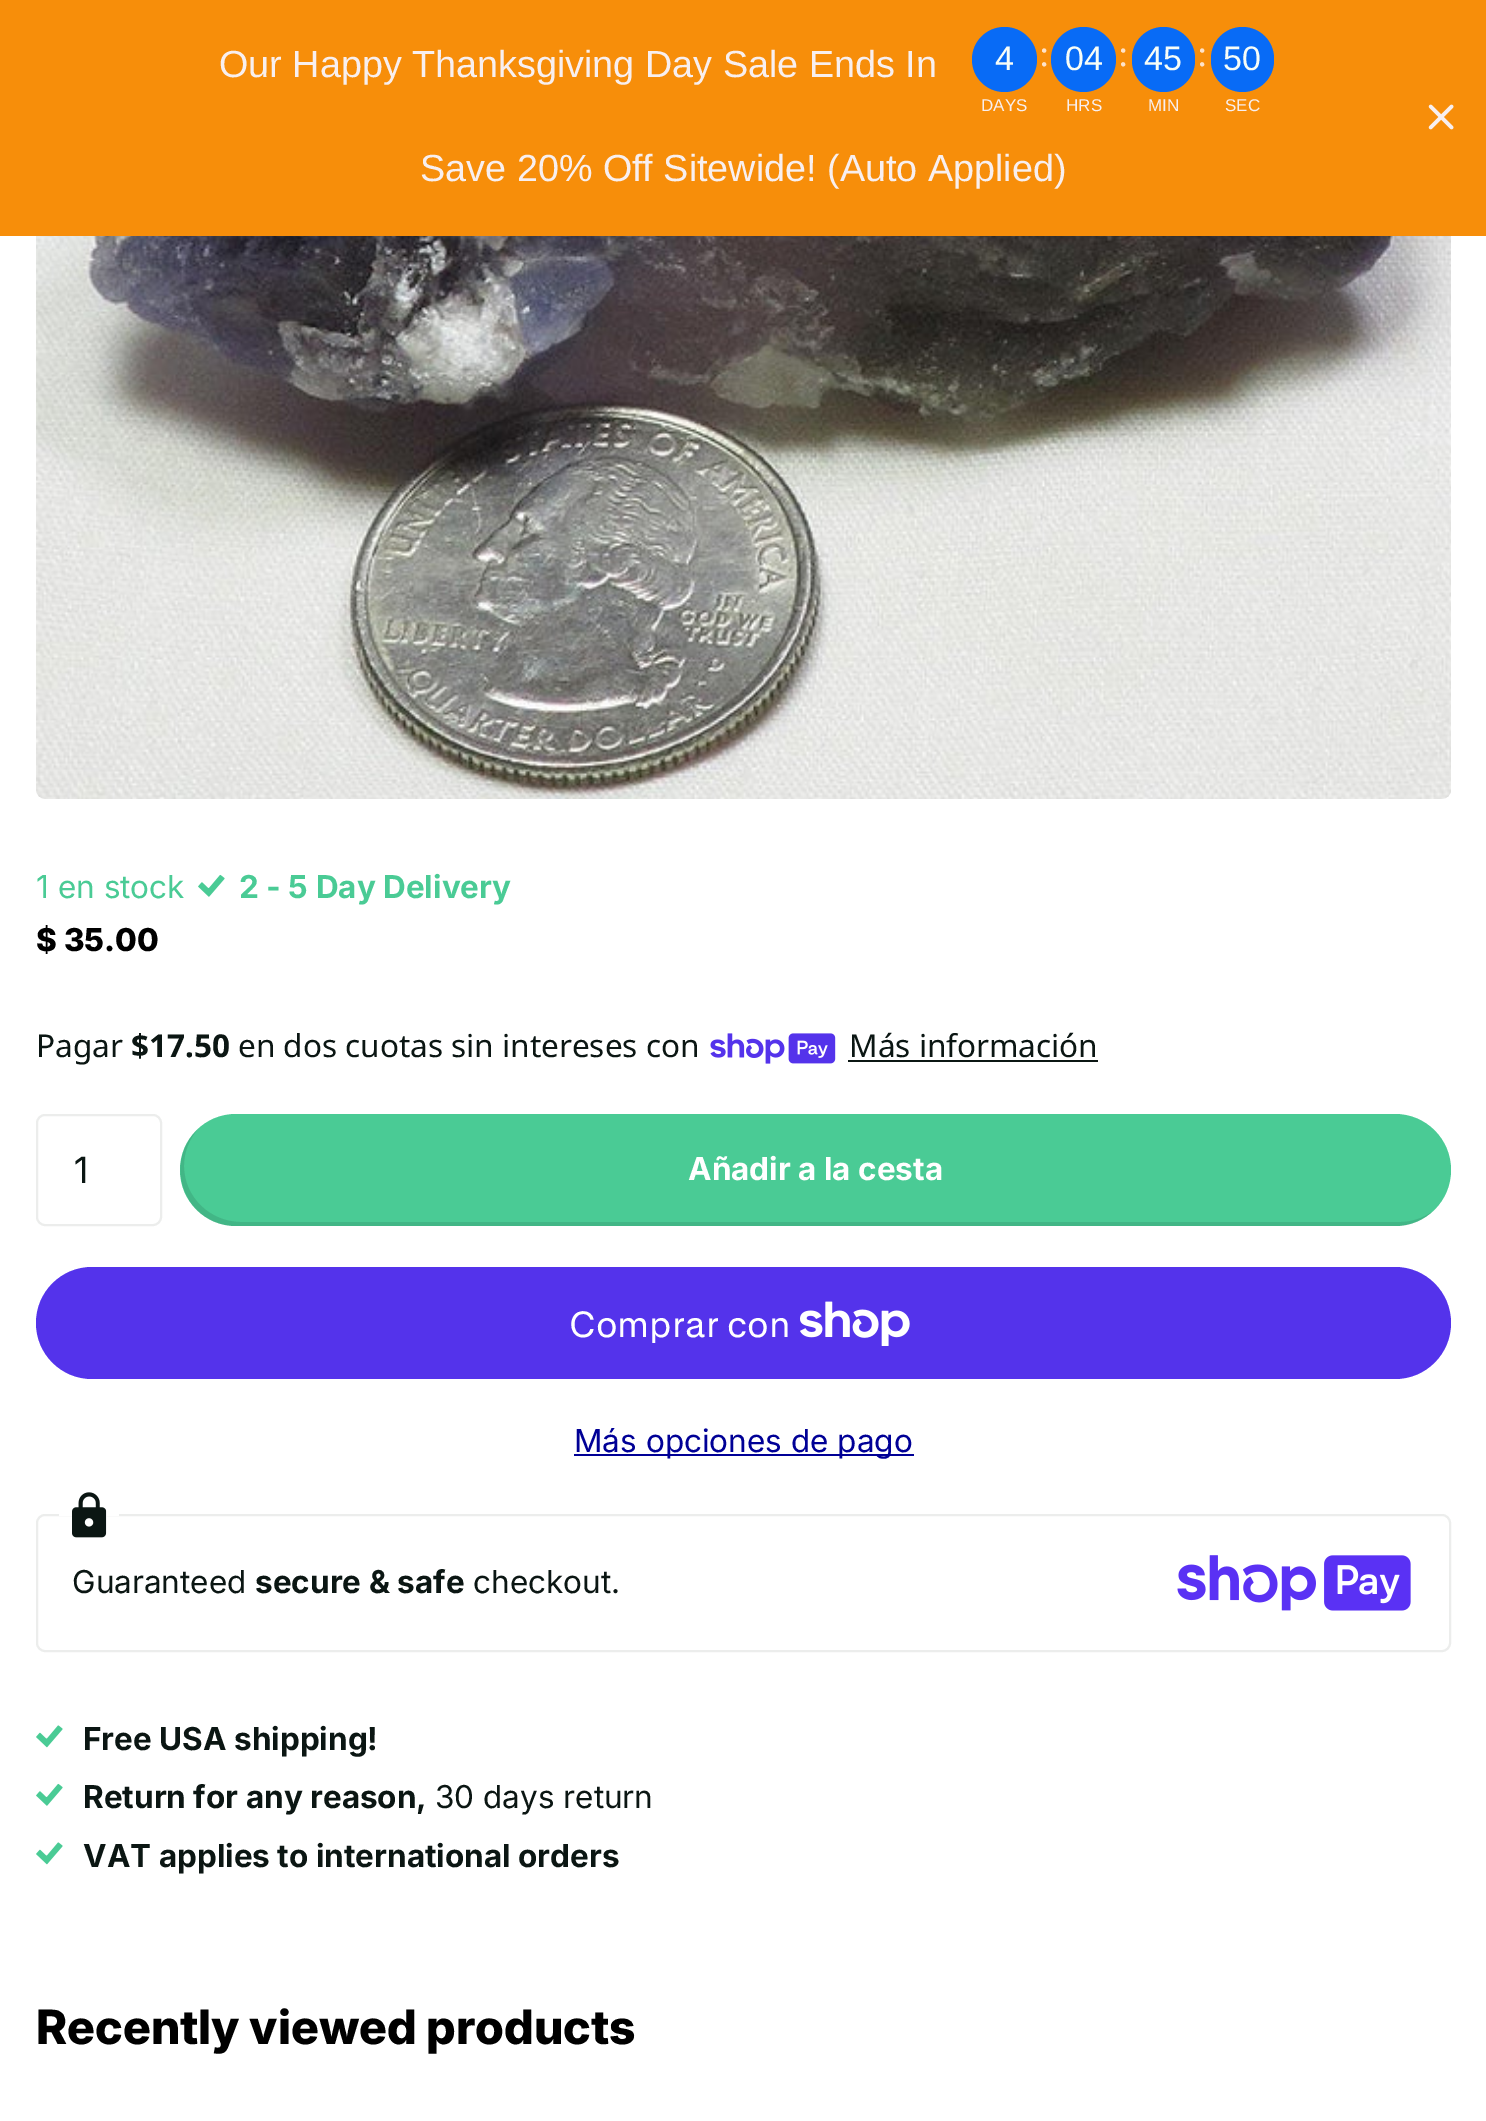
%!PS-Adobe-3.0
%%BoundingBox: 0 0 1486 2121
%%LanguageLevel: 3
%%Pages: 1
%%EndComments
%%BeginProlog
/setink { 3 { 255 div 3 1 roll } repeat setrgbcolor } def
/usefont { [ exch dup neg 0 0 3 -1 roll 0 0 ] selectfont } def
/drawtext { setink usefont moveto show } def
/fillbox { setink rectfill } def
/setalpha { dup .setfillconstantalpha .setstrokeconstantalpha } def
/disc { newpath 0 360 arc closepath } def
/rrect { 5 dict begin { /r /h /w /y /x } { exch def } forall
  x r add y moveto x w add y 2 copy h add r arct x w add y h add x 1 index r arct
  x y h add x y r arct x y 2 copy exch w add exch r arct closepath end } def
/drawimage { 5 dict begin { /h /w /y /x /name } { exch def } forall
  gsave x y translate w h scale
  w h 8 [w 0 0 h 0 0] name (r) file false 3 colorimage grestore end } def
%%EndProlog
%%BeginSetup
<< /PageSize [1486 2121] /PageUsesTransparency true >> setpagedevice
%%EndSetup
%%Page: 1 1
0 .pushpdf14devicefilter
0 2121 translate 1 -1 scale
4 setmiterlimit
0 0 1486 2121 255 255 255 fillbox
0 0 1486 236 247 142 10 fillbox
(Our Happy Thanksgiving Day Sale Ends In) 219 77 /LiberationSans-Regular 37.75 248 239 239 drawtext
8 107 246 setink
1004.5 59.5 32.5 disc fill
(4) 995 70 /LiberationSans-Regular 34 247 253 247 drawtext
(:) 1039 66 /LiberationSerif-Regular 37.75 255 227 201 drawtext
8 107 246 setink
1083.5 59.5 32.5 disc fill
(04) 1065 70 /LiberationSans-Regular 34 247 253 247 drawtext
(:) 1118 66 /LiberationSerif-Regular 37.75 255 227 201 drawtext
8 107 246 setink
1132 27 63 65 31.5 rrect fill
(45) 1144 70 /LiberationSans-Regular 34 247 253 247 drawtext
(:) 1197 66 /LiberationSerif-Regular 37.75 255 227 201 drawtext
8 107 246 setink
1211 27 63 65 31.5 rrect fill
(50) 1223 70 /LiberationSans-Regular 34 247 253 247 drawtext
(DAYS) 981 111 /LiberationSans-Regular 17 248 239 239 drawtext
(HRS) 1066 111 /LiberationSans-Regular 17 248 239 239 drawtext
(MIN) 1148 111 /LiberationSans-Regular 17 248 239 239 drawtext
(SEC) 1225 111 /LiberationSans-Regular 17 248 239 239 drawtext
(assets/img1.rgb) 1428 104 26 26 drawimage
(Save 20% Off Sitewide! \(Auto Applied\)) 420 181 /LiberationSans-Regular 37.75 248 239 239 drawtext
(assets/img2.rgb) 36 236 1415 563 drawimage
(1 en stock) 36 898 /Inter-Regular 31.5 74 203 149 drawtext
(assets/img3.rgb) 198 874 27 23 drawimage
(2 - 5 Day Delivery) 239 898 /Inter-Bold 31.5 74 203 149 drawtext
($ 35.00) 36 951 /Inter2-ExtraBold 31.5 0 0 0 drawtext
(Pagar) 36 1057 /NotoSans-Regular 31.5 11 22 19 drawtext
($17.50) 131 1057 /NotoSans-Bold 31.5 11 22 19 drawtext
(en dos cuotas sin intereses con) 238 1057 /NotoSans-Regular 31.5 11 22 19 drawtext
(assets/img4.rgb) 710 1033 126 31 drawimage
(Más información) 849 1057 /NotoSans-Regular 31.5 11 22 19 drawtext
848 1060 250 2 11 22 19 fillbox
236 237 236 setink
2 setlinewidth
37 1115 124 110 8 rrect stroke
(1) 74 1183 /Inter2-Regular 36 11 22 19 drawtext
74 203 149 setink
180 1114 1271 112 56 rrect fill
0.1 setalpha
0 0 0 setink
197 1130 moveto 162 1165 186 1226 236 1226 curveto 1400 1226 lineto 1412 1225 1423 1220 1432 1212 curveto 1423 1218 1412 1222 1400 1222 curveto 241 1222 lineto 210 1222 184 1197 184 1166 curveto 184 1152 189 1140 197 1130 curveto closepath fill
1 setalpha
(Añadir a la cesta) 688 1180 /Inter-Bold 31.5 255 255 255 drawtext
84 51 235 setink
36 1267 1415 112 56 rrect fill
(Comprar con) 569 1337 /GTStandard-Regular 36 255 255 255 drawtext
(assets/img5.rgb) 800 1301 110 45 drawimage
574 1454 340 2 0 0 150 fillbox
(Más opciones de pago) 574 1452 /Inter-Regular 31.5 0 0 150 drawtext
236 237 236 setink
37 1515 1413 136 8 rrect stroke
59 1514 60 2 255 255 255 fillbox
(assets/img6.rgb) 72 1492 35 46 drawimage
(Guaranteed) 72 1593 /Inter-Regular 31.5 11 22 19 drawtext
(secure & safe) 255 1593 /Inter-Bold 31.5 11 22 19 drawtext
(checkout.) 473 1593 /Inter-Regular 31.5 11 22 19 drawtext
(assets/img7.rgb) 1177 1555 234 56 drawimage
(assets/img8.rgb) 36 1725 27 23 drawimage
(Free USA shipping!) 83 1750 /Inter-Bold 31.5 11 22 19 drawtext
(assets/img3.rgb) 36 1783 27 23 drawimage
(Return for any reason,) 83 1808 /Inter-Bold 31.5 11 22 19 drawtext
(30 days return) 435 1808 /Inter-Regular 31.5 11 22 19 drawtext
(assets/img8.rgb) 36 1842 27 23 drawimage
(VAT applies to international orders) 83 1867 /Inter-Bold 31.5 11 22 19 drawtext
(Recently viewed products) 36 2044 /Inter-ExtraBold 47.25 0 0 0 drawtext
.poppdf14devicefilter showpage
%%EOF
